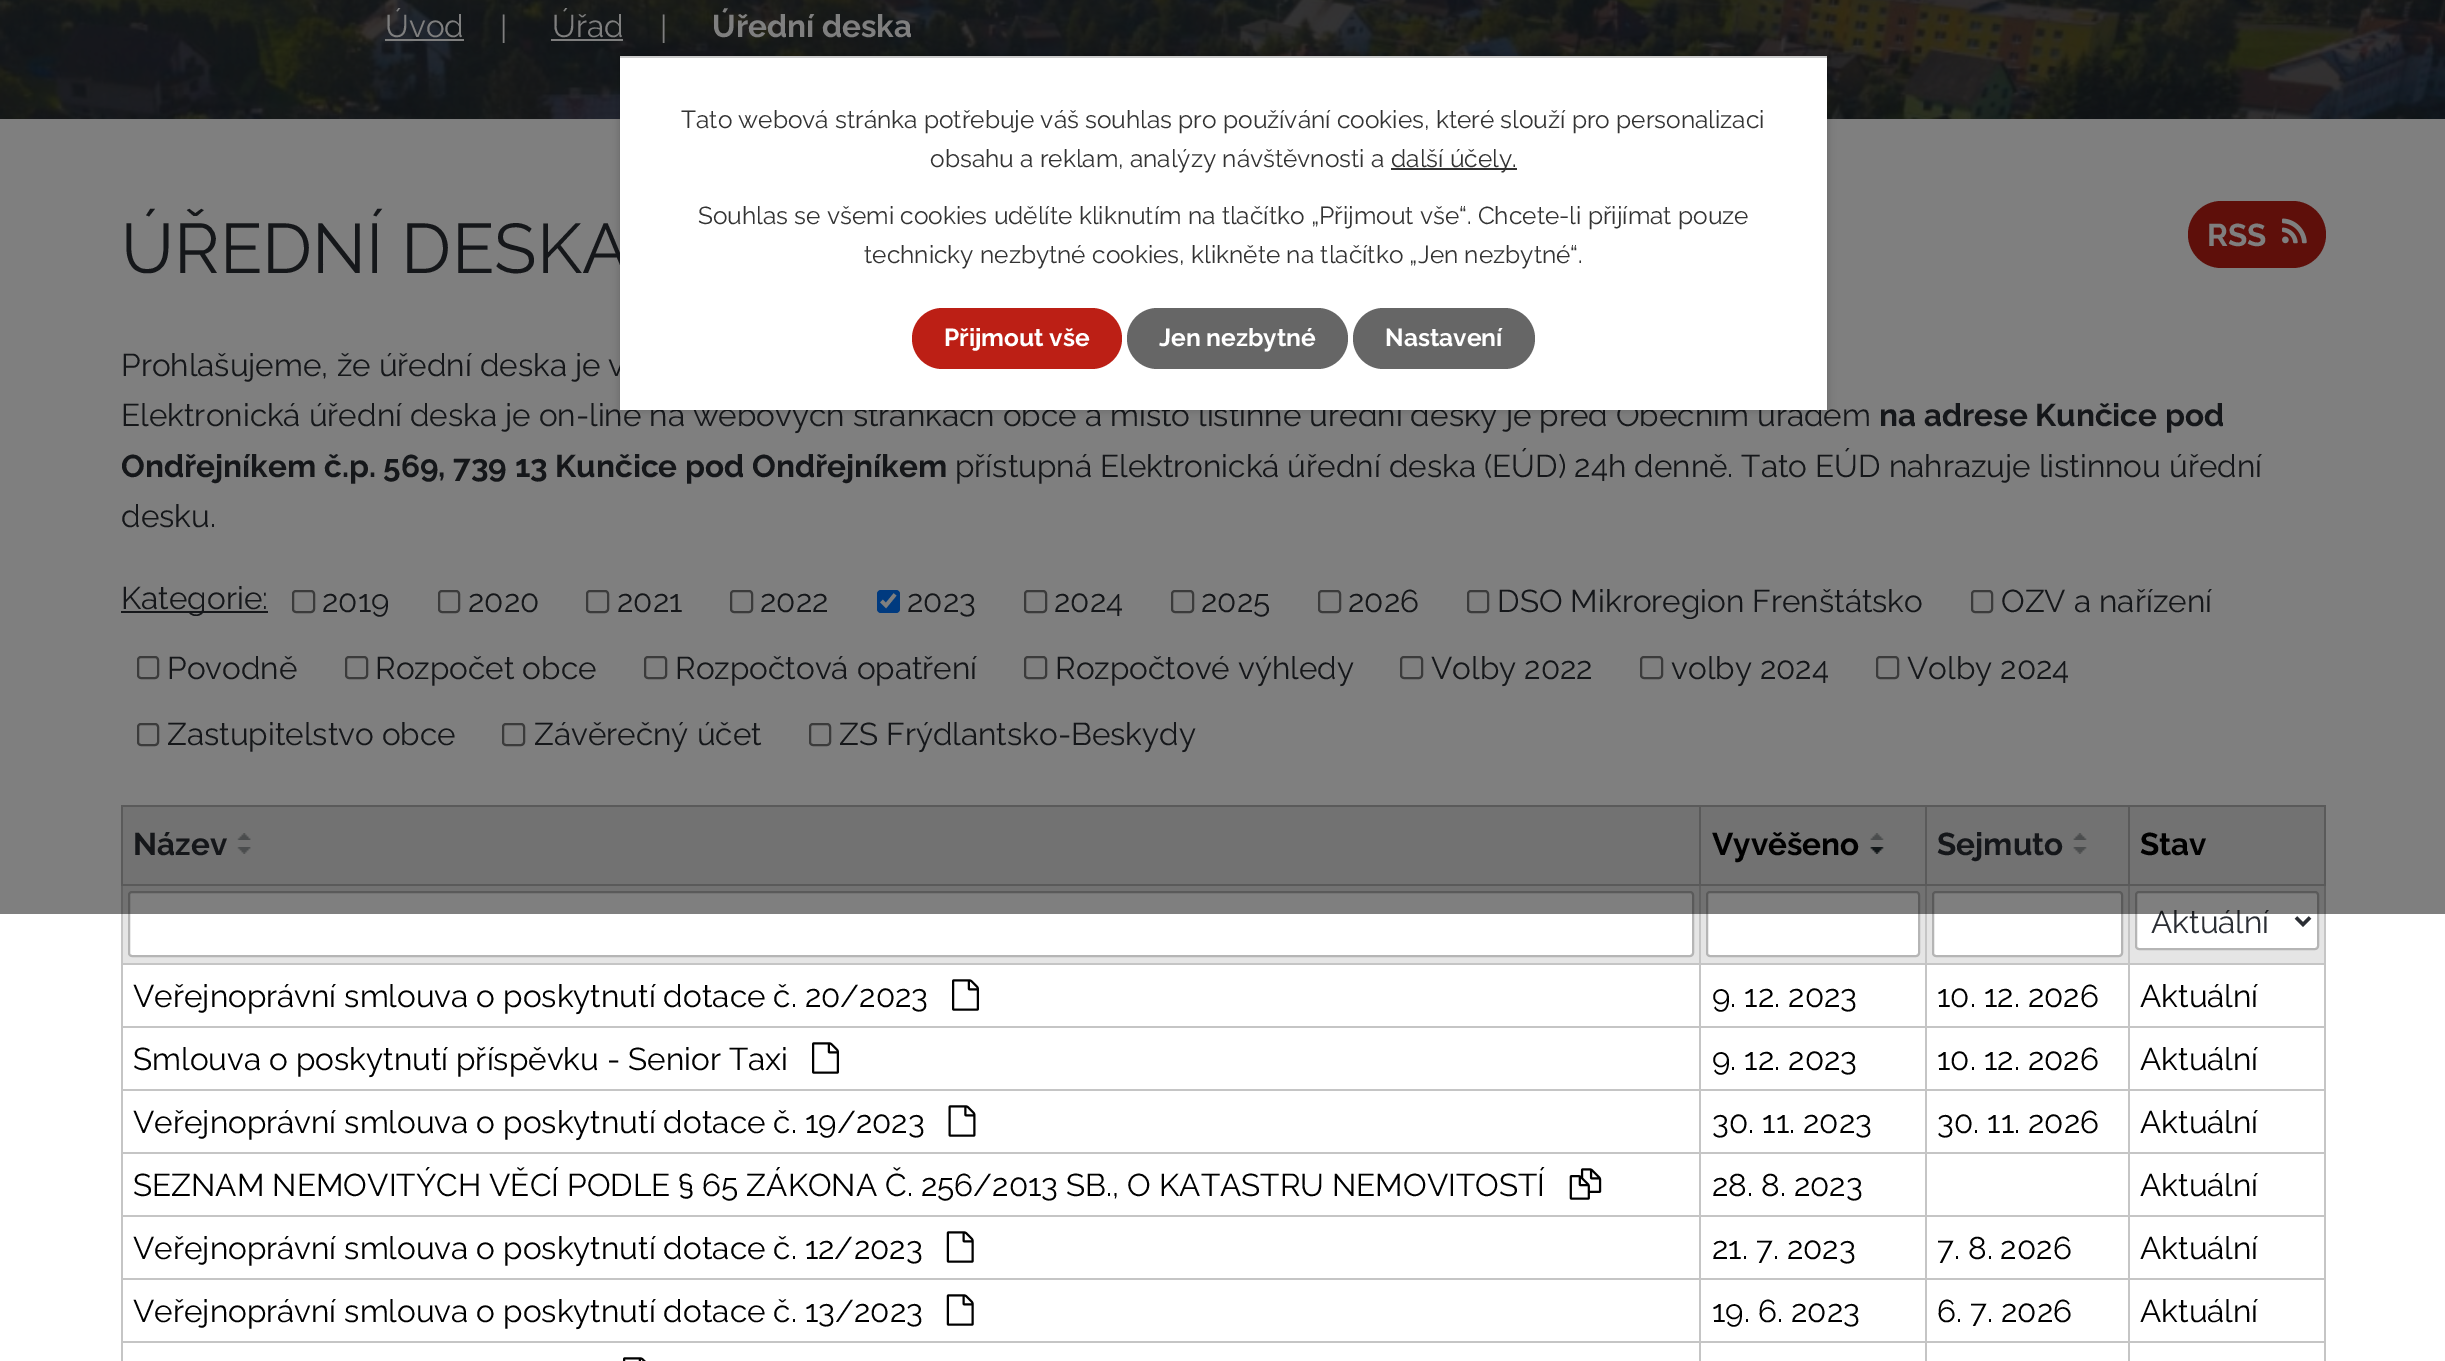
%!PS-Adobe-3.0
%%BoundingBox: 0 0 2445 1361
%%LanguageLevel: 3
%%Pages: 1
%%EndComments
%%BeginProlog
/setink { 3 { 255 div 3 1 roll } repeat setrgbcolor } def
/usefont { [ exch dup neg 0 0 3 -1 roll 0 0 ] selectfont } def
/drawtext { setink usefont moveto show } def
/fillbox { setink rectfill } def
/setalpha { dup .setfillconstantalpha .setstrokeconstantalpha } def
/rrect { 5 dict begin { /r /h /w /y /x } { exch def } forall
  x r add y moveto x w add y 2 copy h add r arct x w add y h add x 1 index r arct
  x y h add x y r arct x y 2 copy exch w add exch r arct closepath end } def
/softshadow { 12 dict begin { /a /b /q /h /w /y /x } { exch def } forall gsave /was 0 def
  9 -2 -9 { dup b mul 4 div /e exch def 1 sub .425 mul 2.718 exch exp 1 add a .99 .min exch div /now exch def
    1 1 now sub 1 was sub div sub setalpha /was now def
    w h .min e 2 mul add 0 gt { x e sub y e sub w e 2 mul add h e 2 mul add
      q e add b .6 mul add w h .min 2 div e add .min 0 .max rrect fill } if } for grestore end } def
/drawimage { 5 dict begin { /h /w /y /x /name } { exch def } forall
  gsave x y translate w h scale
  w h 8 [w 0 0 h 0 0] name (r) file false 3 colorimage grestore end } def
%%EndProlog
%%BeginSetup
<< /PageSize [2445 1361] /PageUsesTransparency true >> setpagedevice
%%EndSetup
%%Page: 1 1
0 .pushpdf14devicefilter
0 1361 translate 1 -1 scale
4 setmiterlimit
0 0 2445 1361 255 255 255 fillbox
(assets/img1.rgb) 0 0 2445 119 drawimage
(Úvod) 385 37 /Raleway-Regular 31.5 255 255 255 drawtext
385 39 79 2 255 255 255 fillbox
(|) 500 39 /Raleway-Regular 31.5 255 255 255 drawtext
(Úřad) 552 37 /Raleway-Regular 31.5 255 255 255 drawtext
551 39 72 2 255 255 255 fillbox
(|) 660 39 /Raleway-Regular 31.5 255 255 255 drawtext
(Úřední deska) 712 37 /Raleway-Bold 31.5 255 255 255 drawtext
(ÚŘEDNÍ DESKA) 121 273 /Raleway-Regular 70 43 46 52 drawtext
188 31 21 setink
2188 201 138 67 33.5 rrect fill
(RSS) 2207 246 /Raleway-Bold 31.5 255 255 255 drawtext
(assets/img2.rgb) 2282 218 25 26 drawimage
(Prohlašujeme, že úřední deska je v) 121 376 /Raleway-Regular 31.5 43 46 52 drawtext
(Elektronická úřední deska je on-line na webových stránkách obce a místo listinné úřední desky je před Obecním úřadem) 121 426 /Raleway-Regular 31.5 43 46 52 drawtext
(na adrese Kunčice pod) 1879 426 /Raleway-Bold 31.5 43 46 52 drawtext
(Ondřejníkem č.p. 569, 739 13 Kunčice pod Ondřejníkem) 121 477 /Raleway-Bold 31.5 43 46 52 drawtext
(přístupná Elektronická úřední deska \(EÚD\) 24h denně. Tato EÚD nahrazuje listinnou úřední) 955 477 /Raleway-Regular 31.5 43 46 52 drawtext
(desku.) 121 527 /Raleway-Regular 31.5 43 46 52 drawtext
121 611 147 2 43 46 52 fillbox
(Kategorie:) 121 609 /Raleway-Regular 31.5 43 46 52 drawtext
118 118 118 setink
2 setlinewidth
293 591 21 21 3 rrect stroke
(2019) 322 612 /Raleway-Regular 31.5 43 46 52 drawtext
118 118 118 setink
439 591 20 21 3 rrect stroke
(2020) 468 612 /Raleway-Regular 31.5 43 46 52 drawtext
118 118 118 setink
587 591 21 21 3 rrect stroke
(2021) 617 612 /Raleway-Regular 31.5 43 46 52 drawtext
118 118 118 setink
731 591 21 21 3 rrect stroke
(2022) 760 612 /Raleway-Regular 31.5 43 46 52 drawtext
0 117 255 setink
877 590 23 23 4 rrect fill
255 255 255 setink
3.6 setlinewidth
881.5 601 moveto 886 605.5 lineto 895 594.5 lineto stroke
(2023) 907 612 /Raleway-Regular 31.5 43 46 52 drawtext
118 118 118 setink
2 setlinewidth
1025 591 21 21 3 rrect stroke
(2024) 1054 612 /Raleway-Regular 31.5 43 46 52 drawtext
118 118 118 setink
1172 591 21 21 3 rrect stroke
(2025) 1201 612 /Raleway-Regular 31.5 43 46 52 drawtext
118 118 118 setink
1319 591 21 21 3 rrect stroke
(2026) 1348 612 /Raleway-Regular 31.5 43 46 52 drawtext
118 118 118 setink
1468 591 20 21 3 rrect stroke
(DSO Mikroregion Frenštátsko) 1497 612 /Raleway-Regular 31.5 43 46 52 drawtext
118 118 118 setink
1972 591 20 21 3 rrect stroke
(OZV a nařízení) 2001 612 /Raleway-Regular 31.5 43 46 52 drawtext
118 118 118 setink
138 657 20 21 3 rrect stroke
(Povodně) 167 679 /Raleway-Regular 31.5 43 46 52 drawtext
118 118 118 setink
346 657 21 21 3 rrect stroke
(Rozpočet obce) 375 679 /Raleway-Regular 31.5 43 46 52 drawtext
118 118 118 setink
645 657 21 21 3 rrect stroke
(Rozpočtová opatření) 675 679 /Raleway-Regular 31.5 43 46 52 drawtext
118 118 118 setink
1025 657 21 21 3 rrect stroke
(Rozpočtové výhledy) 1055 679 /Raleway-Regular 31.5 43 46 52 drawtext
118 118 118 setink
1401 657 21 21 3 rrect stroke
(Volby 2022) 1431 679 /Raleway-Regular 31.5 43 46 52 drawtext
118 118 118 setink
1641 657 21 21 3 rrect stroke
(volby 2024) 1671 679 /Raleway-Regular 31.5 43 46 52 drawtext
118 118 118 setink
1877 657 21 21 3 rrect stroke
(Volby 2024) 1907 679 /Raleway-Regular 31.5 43 46 52 drawtext
118 118 118 setink
138 724 20 21 3 rrect stroke
(Zastupitelstvo obce) 167 745 /Raleway-Regular 31.5 43 46 52 drawtext
118 118 118 setink
503 724 21 21 3 rrect stroke
(Závěrečný účet) 534 745 /Raleway-Regular 31.5 43 46 52 drawtext
118 118 118 setink
810 724 20 21 3 rrect stroke
(ZS Frýdlantsko-Beskydy) 839 745 /Raleway-Regular 31.5 43 46 52 drawtext
123 807 1576 77 229 229 229 fillbox
2128 805 198 2 181 181 181 fillbox
2128 963 198 2 197 197 197 fillbox
2128 1026 198 2 197 197 197 fillbox
2128 1089 198 2 197 197 197 fillbox
2128 1152 198 2 197 197 197 fillbox
2128 1215 198 2 197 197 197 fillbox
2128 1278 198 2 197 197 197 fillbox
2128 1341 198 2 197 197 197 fillbox
2324 1341 2 20 197 197 197 fillbox
2324 1278 2 64 197 197 197 fillbox
2324 1215 2 64 197 197 197 fillbox
2324 1152 2 64 197 197 197 fillbox
2324 1089 2 64 197 197 197 fillbox
2324 1026 2 64 197 197 197 fillbox
2324 884 2 143 197 197 197 fillbox
2324 805 2 81 181 181 181 fillbox
123 886 2201 77 229 229 229 fillbox
2128 1341 2 20 197 197 197 fillbox
1925 1341 205 2 197 197 197 fillbox
2128 1278 2 64 197 197 197 fillbox
1925 1278 205 2 197 197 197 fillbox
2128 1215 2 64 197 197 197 fillbox
1925 1215 205 2 197 197 197 fillbox
2128 1152 2 64 197 197 197 fillbox
1925 1152 205 2 197 197 197 fillbox
2128 1089 2 64 197 197 197 fillbox
1925 1089 205 2 197 197 197 fillbox
2128 1026 2 64 197 197 197 fillbox
1925 1026 205 2 197 197 197 fillbox
2128 963 2 64 197 197 197 fillbox
1925 963 205 2 197 197 197 fillbox
2128 884 2 80 197 197 197 fillbox
2128 884 198 2 181 181 181 fillbox
2128 805 2 81 181 181 181 fillbox
1925 805 205 2 181 181 181 fillbox
1925 1341 2 20 197 197 197 fillbox
1699 1341 228 2 197 197 197 fillbox
1925 1278 2 64 197 197 197 fillbox
1699 1278 228 2 197 197 197 fillbox
1925 1215 2 64 197 197 197 fillbox
1699 1215 228 2 197 197 197 fillbox
1925 1152 2 64 197 197 197 fillbox
1699 1152 228 2 197 197 197 fillbox
1925 1089 2 64 197 197 197 fillbox
1699 1089 228 2 197 197 197 fillbox
1925 1026 2 64 197 197 197 fillbox
1699 1026 228 2 197 197 197 fillbox
1925 963 2 64 197 197 197 fillbox
1699 963 228 2 197 197 197 fillbox
1925 884 2 80 197 197 197 fillbox
1925 884 205 2 181 181 181 fillbox
1925 805 2 81 181 181 181 fillbox
1699 805 228 2 181 181 181 fillbox
1699 1341 2 20 197 197 197 fillbox
121 1341 1580 2 197 197 197 fillbox
1699 1278 2 64 197 197 197 fillbox
121 1278 1580 2 197 197 197 fillbox
1699 1215 2 64 197 197 197 fillbox
121 1215 1580 2 197 197 197 fillbox
1699 1152 2 64 197 197 197 fillbox
121 1152 1580 2 197 197 197 fillbox
1699 1089 2 64 197 197 197 fillbox
121 1089 1580 2 197 197 197 fillbox
1699 1026 2 64 197 197 197 fillbox
121 1026 1580 2 197 197 197 fillbox
1699 963 2 64 197 197 197 fillbox
121 963 1580 2 197 197 197 fillbox
1699 884 2 80 197 197 197 fillbox
1699 884 228 2 181 181 181 fillbox
1699 805 2 81 181 181 181 fillbox
121 805 1580 2 181 181 181 fillbox
121 1341 2 20 197 197 197 fillbox
121 1278 2 64 197 197 197 fillbox
121 1215 2 64 197 197 197 fillbox
121 1152 2 64 197 197 197 fillbox
121 1089 2 64 197 197 197 fillbox
121 1026 2 64 197 197 197 fillbox
121 884 2 143 197 197 197 fillbox
121 884 1580 2 181 181 181 fillbox
121 805 2 81 181 181 181 fillbox
(Název) 133 855 /Raleway-Bold 31.5 43 46 52 drawtext
(assets/img3.rgb) 237 833 14 7 drawimage
(assets/img4.rgb) 237 847 14 7 drawimage
1701 807 224 77 229 229 229 fillbox
(Vyvěšeno) 1712 855 /Raleway-Bold 31.5 0 0 0 drawtext
(assets/img5.rgb) 1870 833 14 7 drawimage
(assets/img6.rgb) 1870 847 14 7 drawimage
1927 807 201 77 229 229 229 fillbox
(Sejmuto) 1937 855 /Raleway-Bold 31.5 43 46 52 drawtext
(assets/img7.rgb) 2073 833 14 7 drawimage
(assets/img8.rgb) 2073 847 14 7 drawimage
2130 807 194 77 229 229 229 fillbox
(Stav) 2140 855 /Raleway-Bold 31.5 0 0 0 drawtext
255 255 255 setink
129 892 1564 64 3 rrect gsave fill grestore
181 181 181 setink
stroke
255 255 255 setink
1707 892 212 64 3 rrect gsave fill grestore
181 181 181 setink
stroke
255 255 255 setink
1933 892 189 64 3 rrect gsave fill grestore
181 181 181 setink
stroke
255 255 255 setink
2136 892 182 57 3 rrect gsave fill grestore
181 181 181 setink
stroke
43 46 52 setink
3.5 setlinewidth
2296 917.5 moveto 2303 924.5 lineto 2310 917.5 lineto stroke
(Aktuální) 2151 933 /Raleway-Regular 31.5 43 46 52 drawtext
(Veřejnoprávní smlouva o poskytnutí dotace č. 20/2023) 133 1007 /Raleway-Regular 31.5 0 0 0 drawtext
(assets/img9.rgb) 952 979 27 32 drawimage
(9. 12. 2023) 1712 1007 /Raleway-Regular 31.5 0 0 0 drawtext
(10. 12. 2026) 1937 1007 /Raleway-Regular 31.5 0 0 0 drawtext
(Aktuální) 2140 1007 /Raleway-Regular 31.5 0 0 0 drawtext
(Smlouva o poskytnutí příspěvku - Senior Taxi) 133 1070 /Raleway-Regular 31.5 0 0 0 drawtext
(assets/img9.rgb) 812 1042 27 32 drawimage
(9. 12. 2023) 1712 1070 /Raleway-Regular 31.5 0 0 0 drawtext
(10. 12. 2026) 1937 1070 /Raleway-Regular 31.5 0 0 0 drawtext
(Aktuální) 2140 1070 /Raleway-Regular 31.5 0 0 0 drawtext
(Veřejnoprávní smlouva o poskytnutí dotace č. 19/2023) 133 1133 /Raleway-Regular 31.5 0 0 0 drawtext
(assets/img10.rgb) 948 1105 28 32 drawimage
(30. 11. 2023) 1712 1133 /Raleway-Regular 31.5 0 0 0 drawtext
(30. 11. 2026) 1937 1133 /Raleway-Regular 31.5 0 0 0 drawtext
(Aktuální) 2140 1133 /Raleway-Regular 31.5 0 0 0 drawtext
(SEZNAM NEMOVITÝCH VĚCÍ PODLE § 65 ZÁKONA Č. 256/2013 SB., O KATASTRU NEMOVITOSTÍ) 133 1196 /Raleway-Regular 31.5 0 0 0 drawtext
(assets/img11.rgb) 1569 1168 33 32 drawimage
(28. 8. 2023) 1712 1196 /Raleway-Regular 31.5 0 0 0 drawtext
(Aktuální) 2140 1196 /Raleway-Regular 31.5 0 0 0 drawtext
(Veřejnoprávní smlouva o poskytnutí dotace č. 12/2023) 133 1259 /Raleway-Regular 31.5 0 0 0 drawtext
(assets/img12.rgb) 946 1231 28 32 drawimage
(21. 7. 2023) 1712 1259 /Raleway-Regular 31.5 0 0 0 drawtext
(7. 8. 2026) 1937 1259 /Raleway-Regular 31.5 0 0 0 drawtext
(Aktuální) 2140 1259 /Raleway-Regular 31.5 0 0 0 drawtext
(Veřejnoprávní smlouva o poskytnutí dotace č. 13/2023) 133 1322 /Raleway-Regular 31.5 0 0 0 drawtext
(assets/img12.rgb) 946 1294 28 32 drawimage
(19. 6. 2023) 1712 1322 /Raleway-Regular 31.5 0 0 0 drawtext
(6. 7. 2026) 1937 1322 /Raleway-Regular 31.5 0 0 0 drawtext
(Aktuální) 2140 1322 /Raleway-Regular 31.5 0 0 0 drawtext
(assets/img13.rgb) 623 1357 23 4 drawimage
0.5 setalpha
0 0 2445 914 0 0 0 fillbox
1 setalpha
620 56 1207 354 0 4.5 0.2 softshadow
620 58 1207 352 255 255 255 fillbox
620 56 1207 2 204 204 204 fillbox
(Tato webová stránka potřebuje váš souhlas pro používání cookies, které slouží pro personalizaci) 681 128 /Raleway-Regular 24.5 51 51 51 drawtext
(obsahu a reklam, analýzy návštěvnosti a) 930 167 /Raleway-Regular 24.5 51 51 51 drawtext
1391 168 126 2 51 51 51 fillbox
(další účely.) 1391 167 /Raleway-Regular 24.5 51 51 51 drawtext
(Souhlas se všemi cookies udělíte kliknutím na tlačítko „Přijmout vše“. Chcete-li přijímat pouze) 698 224 /Raleway-Regular 24.5 51 51 51 drawtext
(technicky nezbytné cookies, klikněte na tlačítko „Jen nezbytné“.) 864 263 /Raleway-Regular 24.5 51 51 51 drawtext
188 31 21 setink
912 308 210 61 30.5 rrect fill
(Přijmout vše) 944 346 /Raleway-Bold 24.5 255 255 255 drawtext
102 102 102 setink
1127 308 221 61 30.5 rrect fill
(Jen nezbytné) 1159 346 /Raleway-Bold 24.5 255 255 255 drawtext
102 102 102 setink
1353 308 182 61 30.5 rrect fill
(Nastavení) 1385 346 /Raleway-Bold 24.5 255 255 255 drawtext
.poppdf14devicefilter showpage
%%EOF
